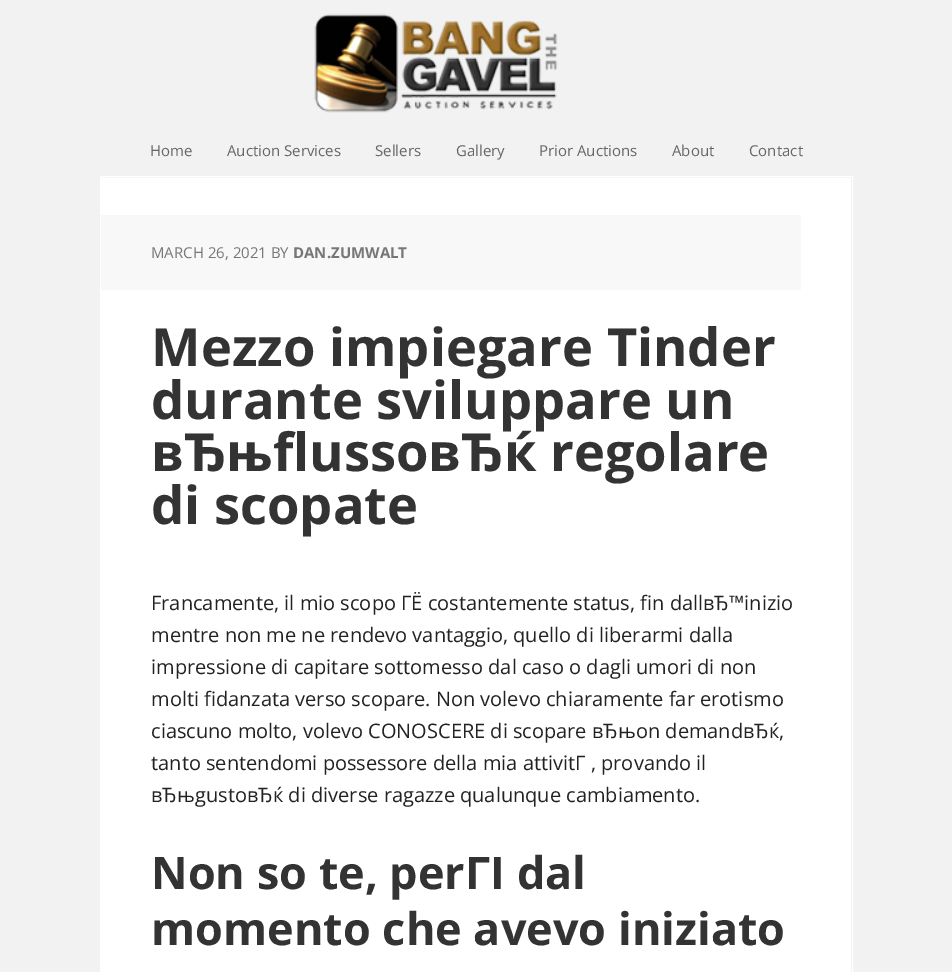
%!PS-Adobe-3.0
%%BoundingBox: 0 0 952 972
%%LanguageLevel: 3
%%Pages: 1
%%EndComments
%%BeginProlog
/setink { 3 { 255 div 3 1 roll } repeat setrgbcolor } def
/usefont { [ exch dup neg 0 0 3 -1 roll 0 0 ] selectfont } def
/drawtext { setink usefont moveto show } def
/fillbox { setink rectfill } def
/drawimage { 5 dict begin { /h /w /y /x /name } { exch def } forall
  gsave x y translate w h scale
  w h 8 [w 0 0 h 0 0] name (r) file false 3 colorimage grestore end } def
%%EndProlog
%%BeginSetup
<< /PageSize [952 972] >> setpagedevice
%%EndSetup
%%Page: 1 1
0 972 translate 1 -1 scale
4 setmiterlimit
0 0 952 972 242 242 242 fillbox
(assets/img1.rgb) 314 13 244 100 drawimage
(Home) 150 156 /OpenSans-Regular 15 102 102 102 drawtext
(Auction Services) 227 156 /OpenSans-Regular 15 102 102 102 drawtext
(Sellers) 375 156 /OpenSans-Regular 15 102 102 102 drawtext
(Gallery) 456 156 /OpenSans-Regular 15 102 102 102 drawtext
(Prior Auctions) 539 156 /OpenSans-Regular 15 102 102 102 drawtext
(About) 672 156 /OpenSans-Regular 15 102 102 102 drawtext
(Contact) 749 156 /OpenSans-Regular 15 102 102 102 drawtext
255 255 255 setink
100.5 176.5 752 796 rectstroke
101 178 750 794 255 255 255 fillbox
101 215 700 75 248 248 248 fillbox
(MARCH 26, 2021 BY) 151 258 /OpenSans-Regular 15 119 119 119 drawtext
(DAN.ZUMWALT) 293 258 /OpenSans-Bold 15 119 119 119 drawtext
(Mezzo impiegare Tinder) 151 366 /OpenSans-Bold 52.5 51 51 51 drawtext
(durante sviluppare un) 151 419 /OpenSans-Bold 52.5 51 51 51 drawtext
(вЂњflussoвЂќ regolare) 151 471 /OpenSans-Bold 52.5 51 51 51 drawtext
(di scopate) 151 524 /OpenSans-Bold 52.5 51 51 51 drawtext
(Francamente, il mio scopo ГЁ costantemente status, fin dallвЂ™inizio) 151 610 /OpenSans-Regular 20 34 34 34 drawtext
(mentre non me ne rendevo vantaggio, quello di liberarmi dalla) 151 642 /OpenSans-Regular 20 34 34 34 drawtext
(impressione di capitare sottomesso dal caso o dagli umori di non) 151 674 /OpenSans-Regular 20 34 34 34 drawtext
(molti fidanzata verso scopare. Non volevo chiaramente far erotismo) 151 706 /OpenSans-Regular 20 34 34 34 drawtext
(ciascuno molto, volevo CONOSCERE di scopare вЂњon demandвЂќ,) 151 738 /OpenSans-Regular 20 34 34 34 drawtext
(tanto sentendomi possessore della mia attivitГ , provando il) 151 770 /OpenSans-Regular 20 34 34 34 drawtext
(вЂњgustoвЂќ di diverse ragazze qualunque cambiamento.) 151 802 /OpenSans-Regular 20 34 34 34 drawtext
(Non so te, perГІ dal) 151 889 /OpenSans-Bold 45 51 51 51 drawtext
(momento che avevo iniziato) 151 945 /OpenSans-Bold 45 51 51 51 drawtext
showpage
%%EOF
